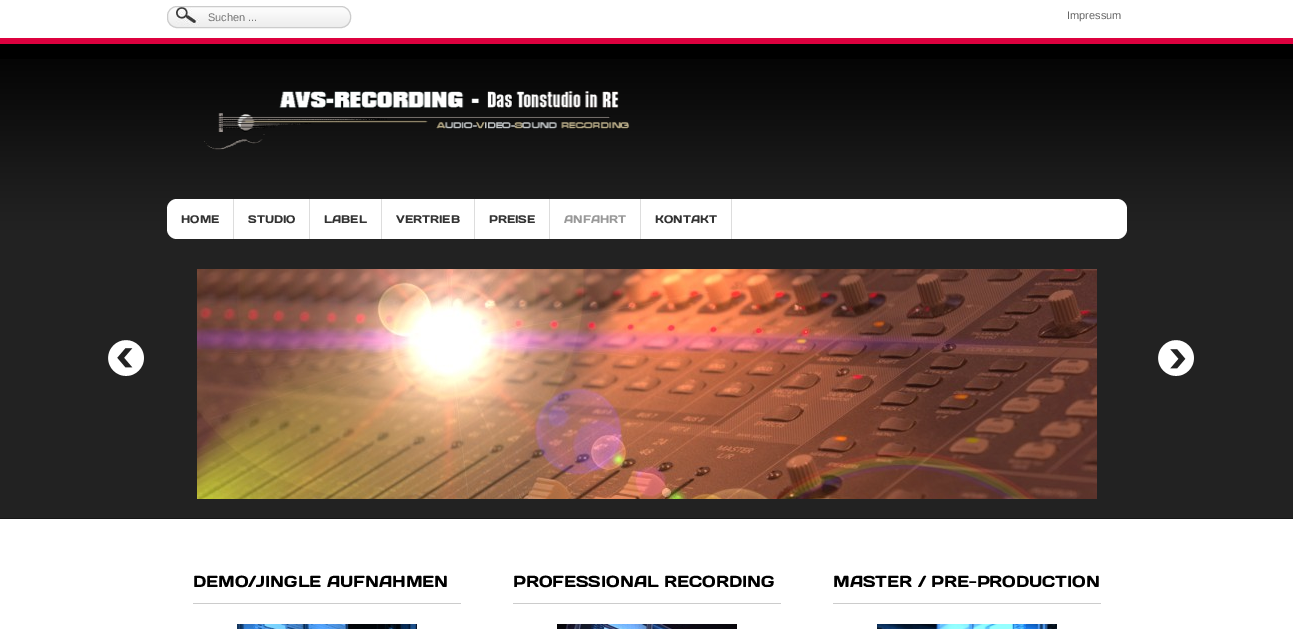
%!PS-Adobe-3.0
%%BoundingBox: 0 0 1293 629
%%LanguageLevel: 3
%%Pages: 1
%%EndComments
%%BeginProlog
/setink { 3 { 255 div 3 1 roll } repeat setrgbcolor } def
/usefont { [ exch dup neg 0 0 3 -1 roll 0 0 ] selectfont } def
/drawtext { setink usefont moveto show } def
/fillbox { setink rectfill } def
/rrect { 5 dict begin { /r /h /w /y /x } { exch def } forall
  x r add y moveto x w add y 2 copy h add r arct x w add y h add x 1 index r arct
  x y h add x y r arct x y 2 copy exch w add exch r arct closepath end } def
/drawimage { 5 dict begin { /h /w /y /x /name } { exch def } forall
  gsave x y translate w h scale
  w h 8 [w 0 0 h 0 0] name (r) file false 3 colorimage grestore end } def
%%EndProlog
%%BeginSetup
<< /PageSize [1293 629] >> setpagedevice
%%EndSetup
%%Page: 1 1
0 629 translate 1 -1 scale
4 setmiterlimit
0 0 1293 629 255 255 255 fillbox
(assets/img1.rgb) 168 6 183 21 drawimage
204 204 204 setink
167.5 6.5 183 21 9.5 rrect stroke
(Suchen ...) 208 21 /LiberationSans-Regular 11 117 117 117 drawtext
(Impressum) 1067 19 /LiberationSans-Regular 11 102 102 102 drawtext
0 44 1293 15 0 0 0 fillbox
(assets/img2.rgb) 0 59 1293 460 drawimage
0 38 1293 6 221 1 63 fillbox
(assets/img3.rgb) 204 91 426 59 drawimage
255 255 255 setink
167 199 960 40 10 rrect fill
233 199 1 40 221 221 221 fillbox
(HOME) 181 223 /DaysOne-Regular 11 51 51 51 drawtext
309 199 1 40 221 221 221 fillbox
(STUDIO) 248 223 /DaysOne-Regular 11 51 51 51 drawtext
381 199 1 40 221 221 221 fillbox
(LABEL) 324 223 /DaysOne-Regular 11 51 51 51 drawtext
474 199 1 40 221 221 221 fillbox
(VERTRIEB) 396 223 /DaysOne-Regular 11 51 51 51 drawtext
549 199 1 40 221 221 221 fillbox
(PREISE) 489 223 /DaysOne-Regular 11 51 51 51 drawtext
640 199 1 40 221 221 221 fillbox
(ANFAHRT) 564 223 /DaysOne-Regular 11 153 153 153 drawtext
731 199 1 40 221 221 221 fillbox
(KONTAKT) 655 223 /DaysOne-Regular 11 51 51 51 drawtext
(assets/img4.rgb) 197 269 900 230 drawimage
(assets/img5.rgb) 108 340 36 36 drawimage
(assets/img6.rgb) 1158 340 36 36 drawimage
193 603 268 1 204 204 204 fillbox
(DEMO/JINGLE AUFNAHMEN) 193 587 /DaysOne-Regular 16 0 0 0 drawtext
(assets/img7.rgb) 237 624 180 5 drawimage
513 603 268 1 204 204 204 fillbox
(PROFESSIONAL RECORDING) 513 587 /DaysOne-Regular 16 0 0 0 drawtext
(assets/img8.rgb) 557 624 180 5 drawimage
833 603 268 1 204 204 204 fillbox
(MASTER / PRE-PRODUCTION) 833 587 /DaysOne-Regular 16 0 0 0 drawtext
(assets/img9.rgb) 877 624 180 5 drawimage
showpage
%%EOF
